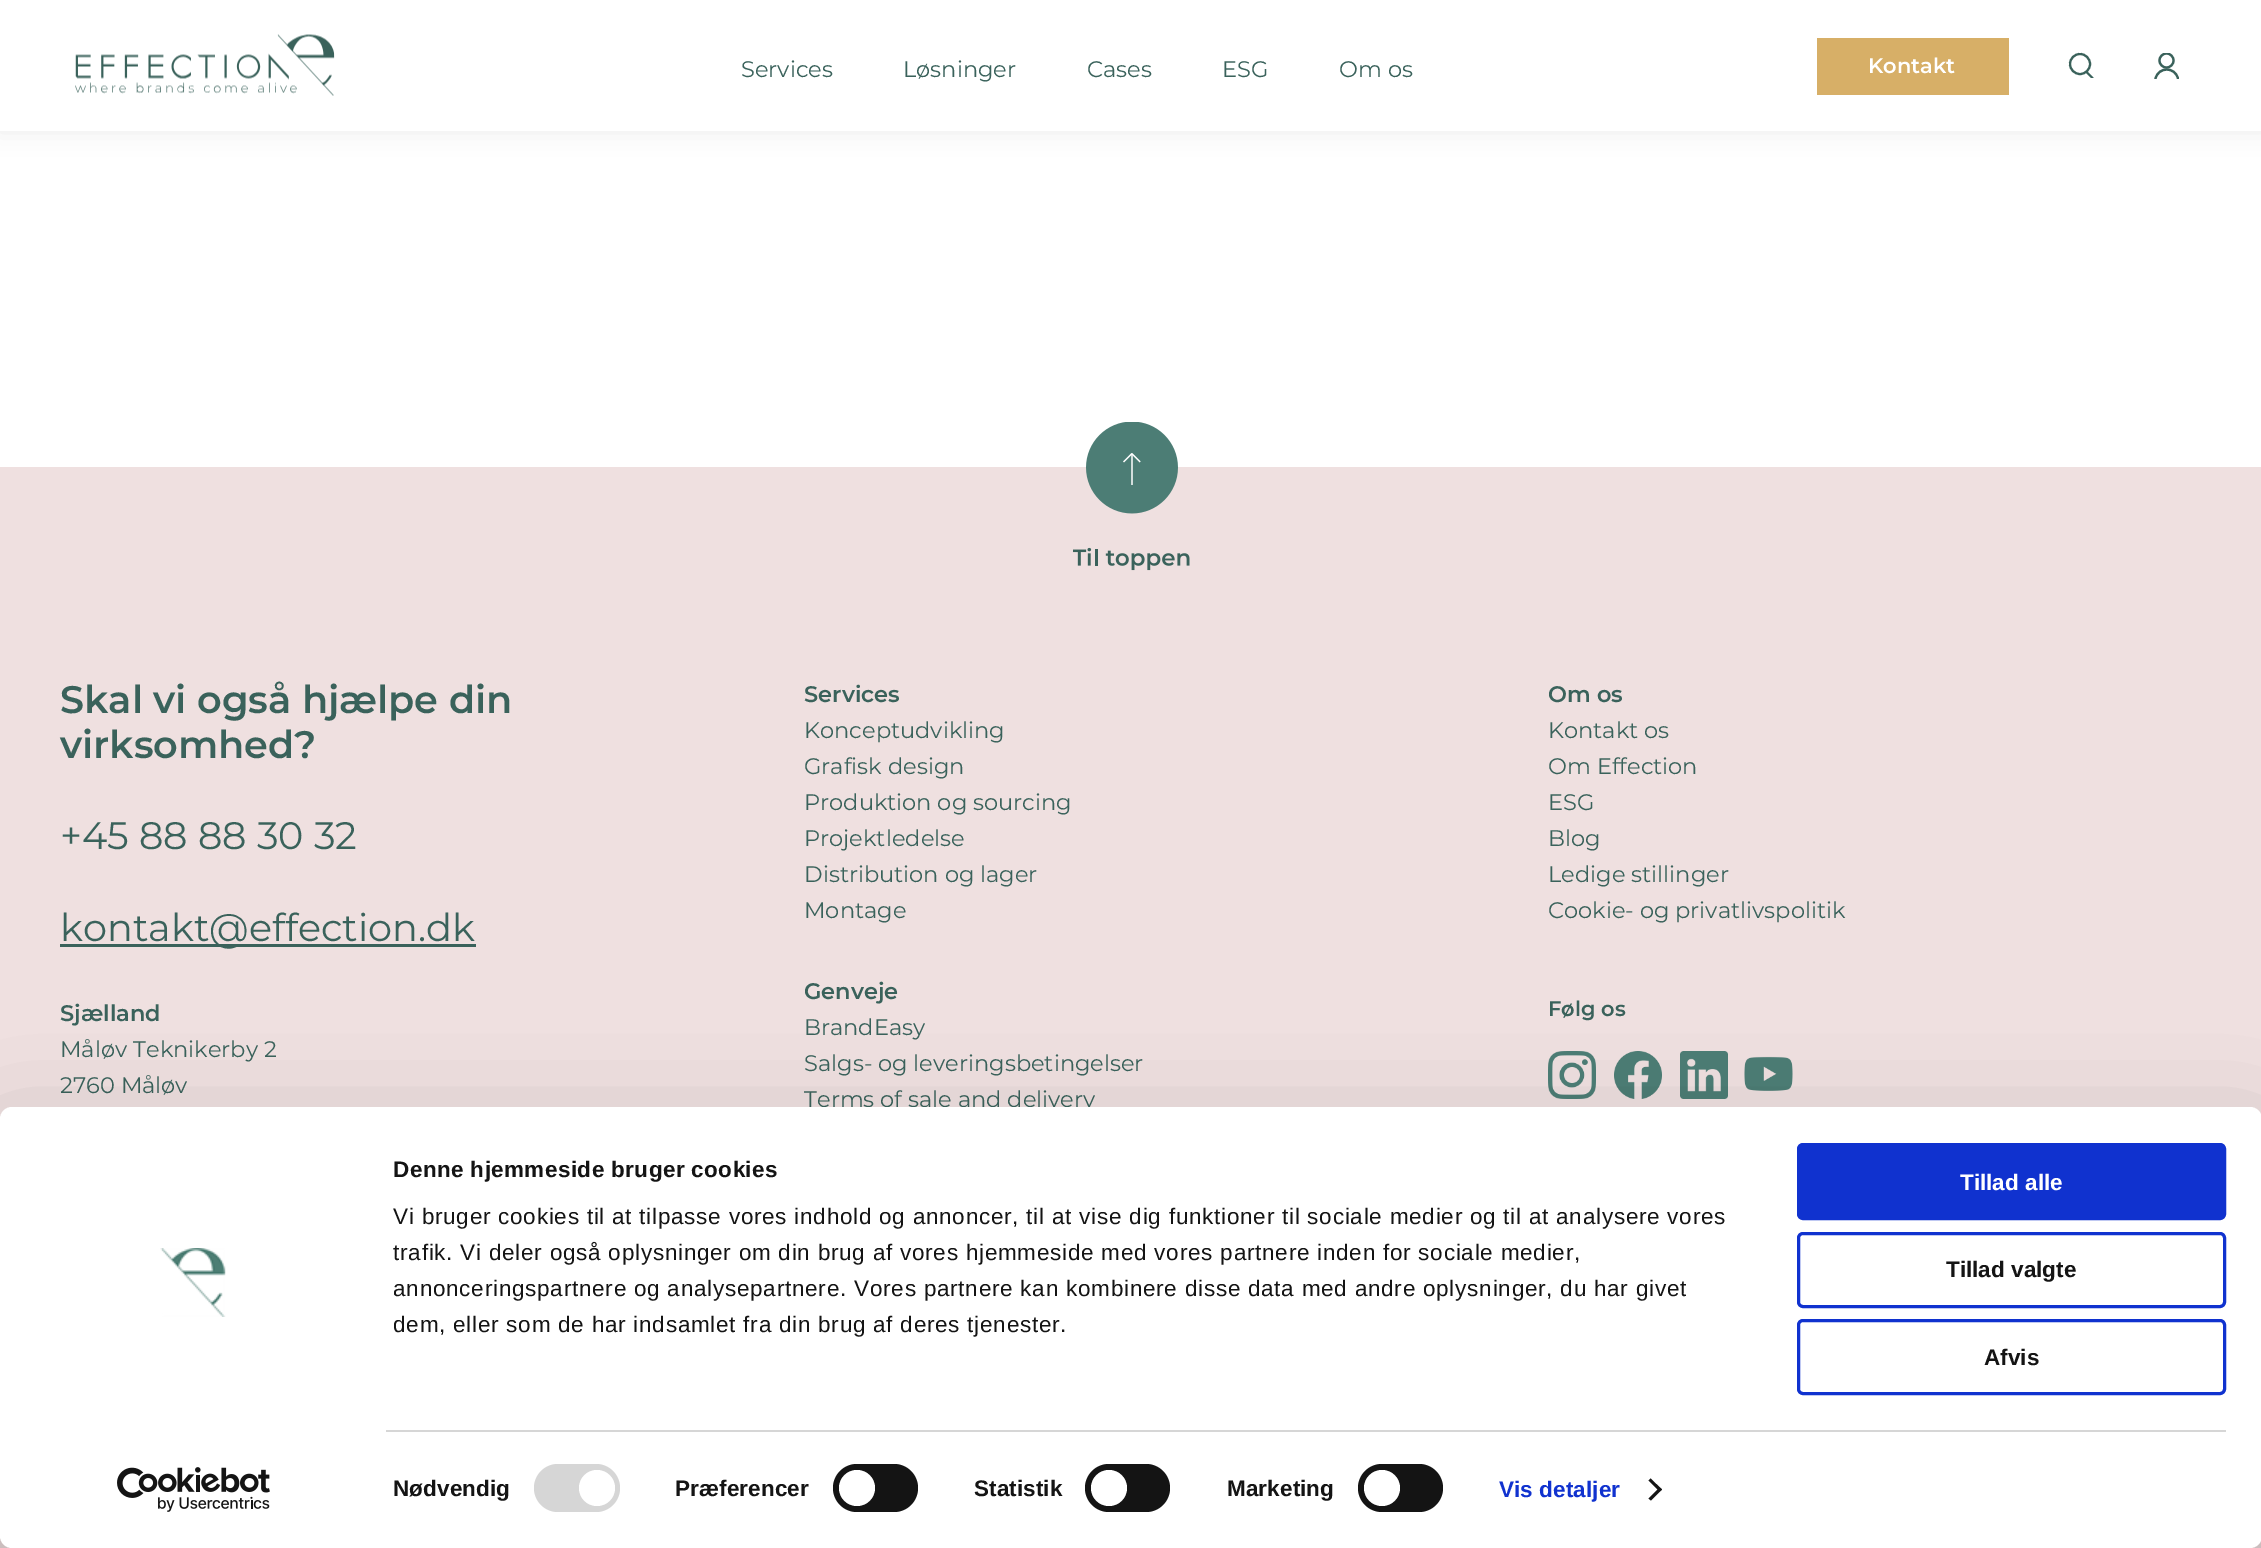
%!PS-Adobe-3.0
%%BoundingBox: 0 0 2261 1548
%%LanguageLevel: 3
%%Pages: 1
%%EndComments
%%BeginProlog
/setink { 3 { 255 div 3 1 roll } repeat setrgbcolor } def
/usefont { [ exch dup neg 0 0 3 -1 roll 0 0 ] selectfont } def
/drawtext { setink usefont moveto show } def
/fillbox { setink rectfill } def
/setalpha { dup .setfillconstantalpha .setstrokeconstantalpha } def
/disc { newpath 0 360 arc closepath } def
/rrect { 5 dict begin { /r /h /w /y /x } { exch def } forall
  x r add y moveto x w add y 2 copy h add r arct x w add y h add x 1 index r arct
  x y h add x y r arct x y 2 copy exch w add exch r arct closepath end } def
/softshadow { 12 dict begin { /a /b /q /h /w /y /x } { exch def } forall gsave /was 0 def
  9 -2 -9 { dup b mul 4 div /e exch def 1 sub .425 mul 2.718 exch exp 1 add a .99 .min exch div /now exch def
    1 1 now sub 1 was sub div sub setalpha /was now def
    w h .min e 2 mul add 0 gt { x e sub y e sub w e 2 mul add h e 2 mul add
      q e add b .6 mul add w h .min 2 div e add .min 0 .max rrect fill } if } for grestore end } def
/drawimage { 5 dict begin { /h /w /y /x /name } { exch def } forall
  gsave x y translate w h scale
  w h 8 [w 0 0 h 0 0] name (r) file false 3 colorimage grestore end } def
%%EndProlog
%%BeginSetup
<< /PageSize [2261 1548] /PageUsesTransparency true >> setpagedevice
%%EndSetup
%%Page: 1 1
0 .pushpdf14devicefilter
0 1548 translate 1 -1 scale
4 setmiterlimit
0 0 2261 1548 255 255 255 fillbox
0 0 0 setink
-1 -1 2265 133 0 11 0.07 softshadow
0 0 2261 131 255 255 255 fillbox
(assets/img1.rgb) 75 34 260 62 drawimage
(Services) 741 77 /Montserrat-Regular 22.5 58 98 91 drawtext
(Løsninger) 903 77 /Montserrat-Regular 22.5 58 98 91 drawtext
(Cases) 1087 77 /Montserrat-Regular 22.5 58 98 91 drawtext
(ESG) 1222 77 /Montserrat-Regular 22.5 58 98 91 drawtext
(Om os) 1339 77 /Montserrat-Regular 22.5 58 98 91 drawtext
1817 38 192 57 215 175 103 fillbox
(Kontakt) 1868 73 /Montserrat-SemiBold 21 255 255 255 drawtext
58 98 91 setink
2.1 setlinewidth
2080 64 10 disc stroke
gsave
2069 53 25 25 rectclip
1 setlinecap
2087 72.5 moveto 2092.5 78 lineto stroke
grestore
gsave
2154 53 25 26 rectclip
2.2 setlinewidth
2166.5 60.5 7 disc stroke
1 setlinecap
1 setlinejoin
2155.5 78.5 moveto 2158.5 66.5 2175 66.5 2178 78.5 curveto stroke
grestore
0 467 2261 1081 239 224 224 fillbox
(assets/img2.rgb) 1073 422 117 149 drawimage
(Skal vi også hjælpe din) 60 713 /Montserrat-SemiBold 38.25 58 98 91 drawtext
(virksomhed?) 60 758 /Montserrat-SemiBold 38.25 58 98 91 drawtext
(+45 88 88 30 32) 60 849 /Montserrat-Regular 38.25 58 98 91 drawtext
60 944 416 3 58 98 91 fillbox
(kontakt@effection.dk) 60 941 /Montserrat-Regular 38.25 58 98 91 drawtext
(Sjælland) 60 1021 /Montserrat-SemiBold 22.5 58 98 91 drawtext
(Måløv Teknikerby 2) 60 1057 /Montserrat-Regular 22.5 58 98 91 drawtext
(2760 Måløv) 60 1093 /Montserrat-Regular 22.5 58 98 91 drawtext
(Services) 804 702 /Montserrat-SemiBold 22.5 58 98 91 drawtext
(Konceptudvikling) 804 738 /Montserrat-Regular 22.5 58 98 91 drawtext
(Grafisk design) 804 774 /Montserrat-Regular 22.5 58 98 91 drawtext
(Produktion og sourcing) 804 810 /Montserrat-Regular 22.5 58 98 91 drawtext
(Projektledelse) 804 846 /Montserrat-Regular 22.5 58 98 91 drawtext
(Distribution og lager) 804 882 /Montserrat-Regular 22.5 58 98 91 drawtext
(Montage) 804 918 /Montserrat-Regular 22.5 58 98 91 drawtext
(Genveje) 804 999 /Montserrat-SemiBold 22.5 58 98 91 drawtext
(BrandEasy) 804 1035 /Montserrat-Regular 22.5 58 98 91 drawtext
(Salgs- og leveringsbetingelser) 804 1071 /Montserrat-Regular 22.5 58 98 91 drawtext
(Terms of sale and delivery) 804 1107 /Montserrat-Regular 22.5 58 98 91 drawtext
(Om os) 1548 702 /Montserrat-SemiBold 22.5 58 98 91 drawtext
(Kontakt os) 1548 738 /Montserrat-Regular 22.5 58 98 91 drawtext
(Om Effection) 1548 774 /Montserrat-Regular 22.5 58 98 91 drawtext
(ESG) 1548 810 /Montserrat-Regular 22.5 58 98 91 drawtext
(Blog) 1548 846 /Montserrat-Regular 22.5 58 98 91 drawtext
(Ledige stillinger) 1548 882 /Montserrat-Regular 22.5 58 98 91 drawtext
(Cookie- og privatlivspolitik) 1548 918 /Montserrat-Regular 22.5 58 98 91 drawtext
(Følg os) 1548 1016 /Montserrat-SemiBold 21 58 98 91 drawtext
(assets/img3.rgb) 1548 1051 48 48 drawimage
(assets/img4.rgb) 1614 1051 48 48 drawimage
(assets/img5.rgb) 1680 1051 48 48 drawimage
(assets/img6.rgb) 1744 1056 49 35 drawimage
0 0 0 setink
0 1152 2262 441 12 52.5 0.3 softshadow
255 255 255 setink
0 1107 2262 441 12 rrect fill
(assets/img7.rgb) 160 1248 66 69 drawimage
(assets/img8.rgb) 117 1467 153 45 drawimage
/LiberationSans-Bold 22.5 usefont
20 20 20 setink
393 1177 moveto 0.4 0 (Denne hjemmeside bruger cookies) ashow
/LiberationSans-Regular 22.5 usefont
393 1224 moveto 0.75 0 (Vi bruger cookies til at tilpasse vores indhold og annoncer, til at vise dig funktioner til sociale medier og til at analysere vores) ashow
393 1260 moveto 0.75 0 (trafik. Vi deler også oplysninger om din brug af vores hjemmeside med vores partnere inden for sociale medier,) ashow
393 1296 moveto 0.75 0 (annonceringspartnere og analysepartnere. Vores partnere kan kombinere disse data med andre oplysninger, du har givet) ashow
393 1332 moveto 0.75 0 (dem, eller som de har indsamlet fra din brug af deres tjenester.) ashow
386 1430 1840 2 214 214 214 fillbox
/LiberationSans-Bold 22.5 usefont
20 20 20 setink
393 1496 moveto 0.1 0 (Nødvendig) ashow
214 214 214 setink
534 1464 86 48 24 rrect fill
255 255 255 setink
597 1488 18 disc fill
20 20 20 setink
675 1496 moveto 0.1 0 (Præferencer) ashow
833 1464 85 48 24 rrect fill
255 255 255 setink
857 1488 18 disc fill
20 20 20 setink
974 1496 moveto 0.1 0 (Statistik) ashow
1085 1464 85 48 24 rrect fill
255 255 255 setink
1109 1488 18 disc fill
20 20 20 setink
1227 1496 moveto 0.1 0 (Marketing) ashow
1358 1464 85 48 24 rrect fill
255 255 255 setink
1382 1488 18 disc fill
16 50 207 setink
1499 1497 moveto 0.1 0 (Vis detaljer) ashow
20 20 20 setink
1650.5 1478.5 moveto 1662 1489.5 lineto 1659.5 1491.5 lineto 1648.5 1480.5 lineto closepath fill
1659.5 1487.5 moveto 1662 1489.5 lineto 1651 1500.5 lineto 1648.5 1498.5 lineto closepath fill
16 50 207 setink
1798.5 1144.5 426 74 4.5 rrect gsave fill grestore
3 setlinewidth
stroke
(Tillad alle) 1960 1190 /LiberationSans-Bold 22.5 255 255 255 drawtext
16 50 207 setink
1798.5 1233.5 426 73 4.5 rrect stroke
(Tillad valgte) 1946 1277 /LiberationSans-Bold 22.5 20 20 20 drawtext
16 50 207 setink
1798.5 1320.5 426 73 4.5 rrect stroke
(Afvis) 1984 1365 /LiberationSans-Bold 22.5 20 20 20 drawtext
.poppdf14devicefilter showpage
%%EOF
